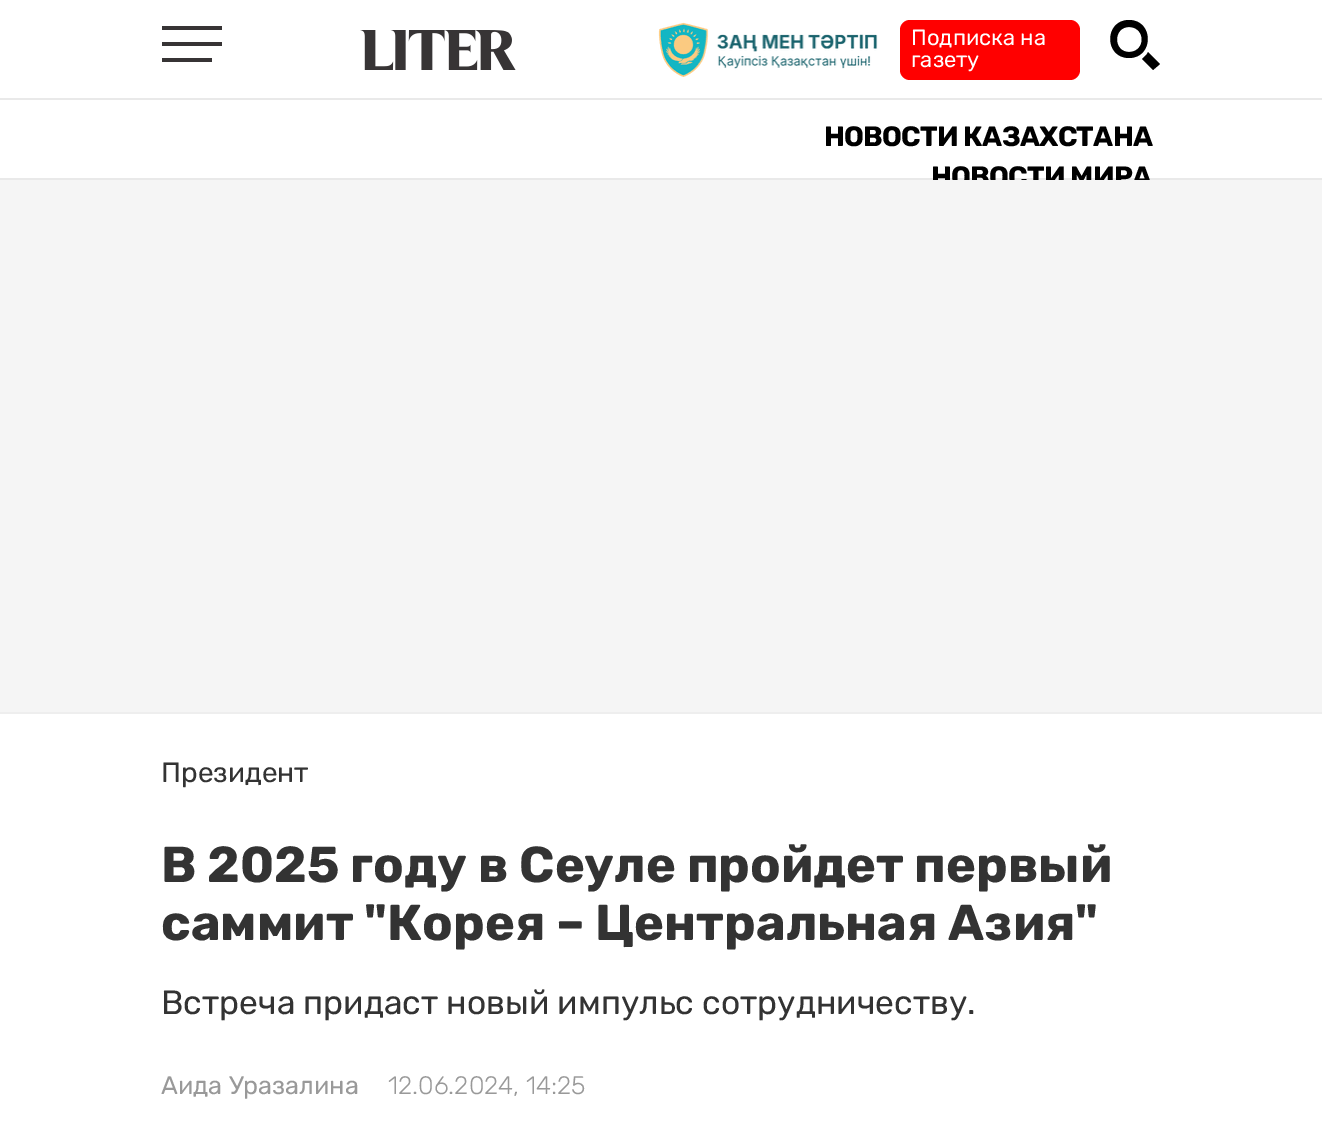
%!PS-Adobe-3.0
%%BoundingBox: 0 0 1322 1134
%%LanguageLevel: 3
%%Pages: 1
%%EndComments
%%BeginProlog
/setink { 3 { 255 div 3 1 roll } repeat setrgbcolor } def
/usefont { [ exch dup neg 0 0 3 -1 roll 0 0 ] selectfont } def
/drawtext { setink usefont moveto show } def
/fillbox { setink rectfill } def
/rrect { 5 dict begin { /r /h /w /y /x } { exch def } forall
  x r add y moveto x w add y 2 copy h add r arct x w add y h add x 1 index r arct
  x y h add x y r arct x y 2 copy exch w add exch r arct closepath end } def
/drawimage { 5 dict begin { /h /w /y /x /name } { exch def } forall
  gsave x y translate w h scale
  w h 8 [w 0 0 h 0 0] name (r) file false 3 colorimage grestore end } def
%%EndProlog
%%BeginSetup
<< /PageSize [1322 1134] >> setpagedevice
%%EndSetup
%%Page: 1 1
0 1134 translate 1 -1 scale
4 setmiterlimit
0 0 1322 1134 255 255 255 fillbox
0 98 1322 2 233 233 233 fillbox
162 26 60 4 55 52 53 fillbox
162 42 60 4 55 52 53 fillbox
162 58 50 4 55 52 53 fillbox
(assets/img1.rgb) 360 30 156 40 drawimage
(assets/img2.rgb) 658 22 220 55 drawimage
255 0 0 setink
900 20 180 60 10 rrect fill
(Подписка на) 911 45 /Rubik-Regular 22 255 255 255 drawtext
(газету) 911 67 /Rubik-Regular 22 255 255 255 drawtext
0 0 0 setink
1129 58 moveto 1104 58 1104 20 1129 20 curveto 1154 20 1154 58 1129 58 curveto closepath 1129 27 moveto 1113 27 1113 52 1129 52 curveto 1146 52 1146 27 1129 27 curveto closepath 1148 52 moveto 1147 55 1144 57 1142 59 curveto 1153 70 lineto 1160 64 lineto closepath fill
0 178 1322 2 233 233 233 fillbox
/Rubik-Bold 28 usefont
0 0 0 setink
824 146 moveto -0.75 0 (НОВОСТИ КАЗАХСТАНА) ashow
931 186 moveto -0.75 0 (НОВОСТИ МИРА) ashow
0 180 1322 532 245 245 245 fillbox
0 712 1322 2 238 238 238 fillbox
(Президент) 161 782 /Rubik-Regular 28 51 51 51 drawtext
(В 2025 году в Сеуле пройдет первый) 161 882 /Rubik-Bold 50.4 51 51 51 drawtext
(саммит "Корея – Центральная Азия") 161 940 /Rubik-Bold 50.4 51 51 51 drawtext
(Встреча придаст новый импульс сотрудничеству.) 161 1014 /Rubik-Regular 33.6 51 51 51 drawtext
(Аида Уразалина) 161 1094 /Rubik-Regular 25.25 153 153 153 drawtext
(12.06.2024, 14:25) 388 1094 /Rubik-Light 25.25 153 153 153 drawtext
showpage
%%EOF
